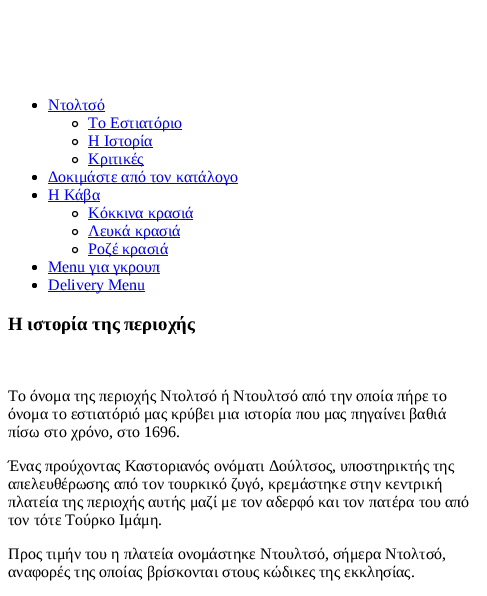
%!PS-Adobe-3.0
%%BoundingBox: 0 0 487 596
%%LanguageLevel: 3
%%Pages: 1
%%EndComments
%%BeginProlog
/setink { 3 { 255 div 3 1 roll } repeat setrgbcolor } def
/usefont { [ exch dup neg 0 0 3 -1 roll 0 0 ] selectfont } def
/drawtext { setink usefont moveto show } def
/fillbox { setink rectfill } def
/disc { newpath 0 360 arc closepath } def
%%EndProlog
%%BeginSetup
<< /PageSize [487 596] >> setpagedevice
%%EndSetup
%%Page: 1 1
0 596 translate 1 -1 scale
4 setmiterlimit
0 0 487 596 255 255 255 fillbox
0 0 0 setink
34.5 105.5 2.5 disc fill
(Ντολτσό) 48 110 /LiberationSerif-Regular 16 0 0 238 drawtext
48 111 57 1 0 0 238 fillbox
0 0 0 setink
75 124 2.5 disc stroke
88 129 94 1 0 0 238 fillbox
(Το Εστιατόριο) 88 128 /LiberationSerif-Regular 16 0 0 238 drawtext
0 0 0 setink
75 142 2.5 disc stroke
88 147 65 1 0 0 238 fillbox
(Η Ιστορία) 88 146 /LiberationSerif-Regular 16 0 0 238 drawtext
0 0 0 setink
75 160 2.5 disc stroke
88 165 56 1 0 0 238 fillbox
(Κριτικές) 88 164 /LiberationSerif-Regular 16 0 0 238 drawtext
0 0 0 setink
34.5 177.5 2.5 disc fill
48 183 190 1 0 0 238 fillbox
(Δοκιμάστε από τον κατάλογο) 48 182 /LiberationSerif-Regular 16 0 0 238 drawtext
0 0 0 setink
34.5 195.5 2.5 disc fill
48 201 52 1 0 0 238 fillbox
(Η Κάβα) 48 200 /LiberationSerif-Regular 16 0 0 238 drawtext
0 0 0 setink
75 214 2.5 disc stroke
88 219 105 1 0 0 238 fillbox
(Κόκκινα κρασιά) 88 218 /LiberationSerif-Regular 16 0 0 238 drawtext
0 0 0 setink
75 232 2.5 disc stroke
88 237 92 1 0 0 238 fillbox
(Λευκά κρασιά) 88 236 /LiberationSerif-Regular 16 0 0 238 drawtext
0 0 0 setink
75 250 2.5 disc stroke
88 255 80 1 0 0 238 fillbox
(Ροζέ κρασιά) 88 254 /LiberationSerif-Regular 16 0 0 238 drawtext
0 0 0 setink
34.5 267.5 2.5 disc fill
48 273 112 1 0 0 238 fillbox
(Menu για γκρουπ) 48 272 /LiberationSerif-Regular 16 0 0 238 drawtext
0 0 0 setink
34.5 285.5 2.5 disc fill
48 291 97 1 0 0 238 fillbox
(Delivery Menu) 48 290 /LiberationSerif-Regular 16 0 0 238 drawtext
(Η ιστορία της περιοχής) 8 330 /LiberationSerif-Bold 18.75 0 0 0 drawtext
(Το όνομα της περιοχής Ντολτσό ή Ντουλτσό από την οποία πήρε το) 8 401 /LiberationSerif-Regular 16 0 0 0 drawtext
(όνομα το εστιατόριό μας κρύβει μια ιστορία που μας πηγαίνει βαθιά) 8 419 /LiberationSerif-Regular 16 0 0 0 drawtext
(πίσω στο χρόνο, στο 1696.) 8 437 /LiberationSerif-Regular 16 0 0 0 drawtext
(Ένας προύχοντας Καστοριανός ονόματι Δούλτσος, υποστηρικτής της) 8 471 /LiberationSerif-Regular 16 0 0 0 drawtext
(απελευθέρωσης από τον τουρκικό ζυγό, κρεμάστηκε στην κεντρική) 8 489 /LiberationSerif-Regular 16 0 0 0 drawtext
(πλατεία της περιοχής αυτής μαζί με τον αδερφό και τον πατέρα του από) 8 507 /LiberationSerif-Regular 16 0 0 0 drawtext
(τον τότε Τούρκο Ιμάμη.) 8 525 /LiberationSerif-Regular 16 0 0 0 drawtext
(Προς τιμήν του η πλατεία ονομάστηκε Ντουλτσό, σήμερα Ντολτσό,) 8 559 /LiberationSerif-Regular 16 0 0 0 drawtext
(αναφορές της οποίας βρίσκονται στους κώδικες της εκκλησίας.) 8 577 /LiberationSerif-Regular 16 0 0 0 drawtext
showpage
%%EOF
